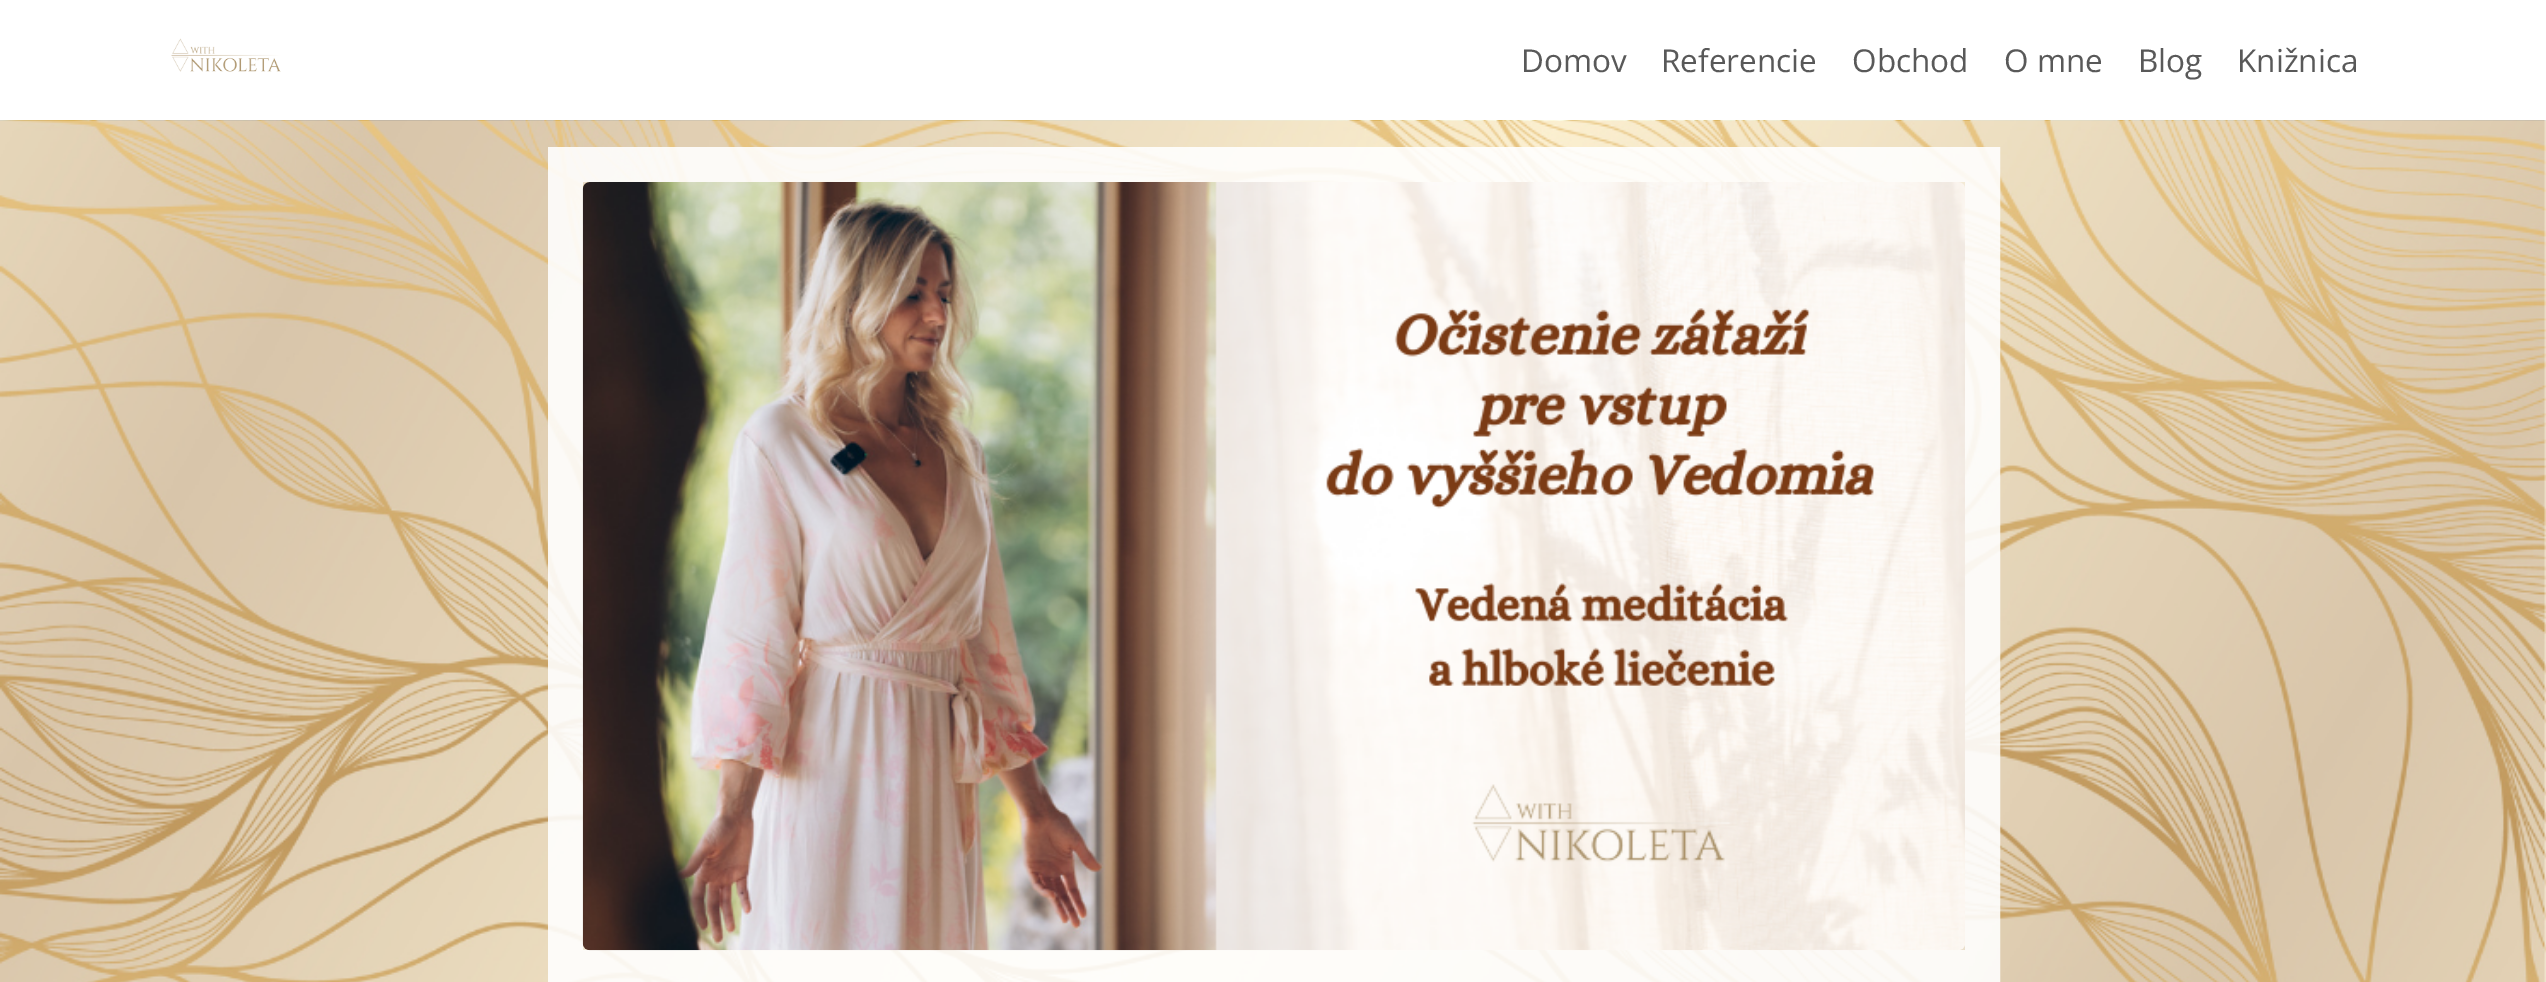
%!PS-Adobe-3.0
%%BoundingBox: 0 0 2546 982
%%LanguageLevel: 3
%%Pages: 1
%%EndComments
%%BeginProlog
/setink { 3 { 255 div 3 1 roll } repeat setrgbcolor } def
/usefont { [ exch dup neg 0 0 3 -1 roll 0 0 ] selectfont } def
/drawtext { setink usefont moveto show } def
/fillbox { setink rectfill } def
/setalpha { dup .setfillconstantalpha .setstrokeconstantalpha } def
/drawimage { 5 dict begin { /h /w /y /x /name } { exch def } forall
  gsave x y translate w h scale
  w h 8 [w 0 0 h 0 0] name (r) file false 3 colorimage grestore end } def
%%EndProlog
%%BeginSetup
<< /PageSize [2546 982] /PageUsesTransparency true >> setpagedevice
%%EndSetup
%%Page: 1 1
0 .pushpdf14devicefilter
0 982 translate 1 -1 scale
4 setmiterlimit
0 0 2546 982 255 255 255 fillbox
(assets/img1.rgb) 171 38 110 34 drawimage
(Domov) 1521 72 /OpenSans-Regular 31.5 89 89 89 drawtext
(Referencie) 1661 72 /OpenSans-Regular 31.5 89 89 89 drawtext
(Obchod) 1852 72 /OpenSans-Regular 31.5 89 89 89 drawtext
(O mne) 2004 72 /OpenSans-Regular 31.5 89 89 89 drawtext
(Blog) 2138 72 /OpenSans-Regular 31.5 89 89 89 drawtext
(Knižnica) 2237 72 /OpenSans-Regular 31.5 89 89 89 drawtext
(assets/img2.rgb) 0 120 2546 862 drawimage
0.35 setalpha
548 147 1452 835 255 255 255 fillbox
0.83 setalpha
35 setlinewidth
565.5 164.5 1417 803 rectstroke
1 setalpha
(assets/img3.rgb) 582 182 1383 769 drawimage
.poppdf14devicefilter showpage
%%EOF
